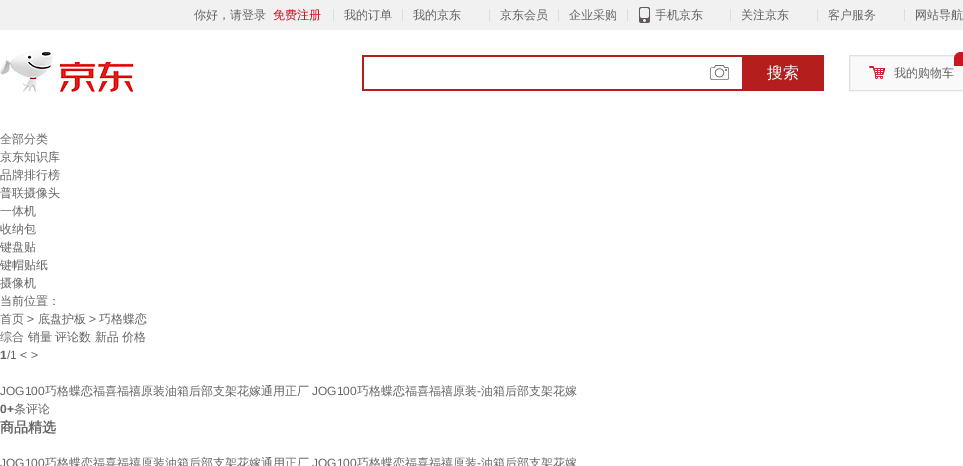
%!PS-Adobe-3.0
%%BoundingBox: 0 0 963 466
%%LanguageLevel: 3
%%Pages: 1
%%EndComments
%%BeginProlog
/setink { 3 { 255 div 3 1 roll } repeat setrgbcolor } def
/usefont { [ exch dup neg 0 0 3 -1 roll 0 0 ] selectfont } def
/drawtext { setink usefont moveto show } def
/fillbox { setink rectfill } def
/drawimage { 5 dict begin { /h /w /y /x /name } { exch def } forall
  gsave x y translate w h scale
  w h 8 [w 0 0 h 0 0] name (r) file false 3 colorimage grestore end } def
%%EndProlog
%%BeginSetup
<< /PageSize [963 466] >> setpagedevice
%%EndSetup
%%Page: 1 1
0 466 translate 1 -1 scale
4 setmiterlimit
0 0 963 466 255 255 255 fillbox
0 0 963 30 241 241 241 fillbox
(你好，请登录) 194 19 /WenQuanYiZenHei-Medium 12 102 102 102 drawtext
(免费注册) 273 19 /WenQuanYiZenHei-Medium 12 200 22 35 drawtext
333 9 1 12 221 221 221 fillbox
(我的订单) 344 19 /WenQuanYiZenHei-Medium 12 102 102 102 drawtext
402 9 1 12 221 221 221 fillbox
(我的京东) 413 19 /WenQuanYiZenHei-Medium 12 102 102 102 drawtext
489 9 1 12 221 221 221 fillbox
(京东会员) 500 19 /WenQuanYiZenHei-Medium 12 102 102 102 drawtext
558 9 1 12 221 221 221 fillbox
(企业采购) 569 19 /WenQuanYiZenHei-Medium 12 102 102 102 drawtext
627 9 1 12 221 221 221 fillbox
(assets/img1.rgb) 639 7 11 16 drawimage
(手机京东) 655 19 /WenQuanYiZenHei-Medium 12 102 102 102 drawtext
730 9 1 12 221 221 221 fillbox
(关注京东) 741 19 /WenQuanYiZenHei-Medium 12 102 102 102 drawtext
817 9 1 12 221 221 221 fillbox
(客户服务) 828 19 /WenQuanYiZenHei-Medium 12 102 102 102 drawtext
904 9 1 12 221 221 221 fillbox
(网站导航) 915 19 /WenQuanYiZenHei-Medium 12 102 102 102 drawtext
(assets/img2.rgb) 0 50 134 42 drawimage
362 55 380 2 182 29 29 fillbox
362 89 380 2 182 29 29 fillbox
362 55 2 36 182 29 29 fillbox
742 55 82 36 182 29 29 fillbox
(搜索) 767 78 /WenQuanYiZenHei-Medium 16 255 255 255 drawtext
(assets/img3.rgb) 710 65 19 15 drawimage
249 249 249 setink
849.5 55.5 moveto 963.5 55.5 lineto 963.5 90.5 lineto 849.5 90.5 lineto closepath gsave fill grestore
223 223 223 setink
stroke
200 22 35 setink
961 52 moveto 963 52 lineto 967 52 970 55 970 59 curveto 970 63 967 66 963 66 curveto 954 66 lineto 954 59 lineto 954 55 957 52 961 52 curveto closepath fill
(assets/img4.rgb) 869 66 16 13 drawimage
(我的购物车) 894 77 /WenQuanYiZenHei-Medium 12 102 102 102 drawtext
(全部分类) 0 143 /WenQuanYiZenHei-Medium 12 102 102 102 drawtext
(京东知识库) 0 161 /WenQuanYiZenHei-Medium 12 102 102 102 drawtext
(品牌排行榜) 0 179 /WenQuanYiZenHei-Medium 12 102 102 102 drawtext
(普联摄像头) 0 197 /WenQuanYiZenHei-Medium 12 102 102 102 drawtext
(一体机) 0 215 /WenQuanYiZenHei-Medium 12 102 102 102 drawtext
(收纳包) 0 233 /WenQuanYiZenHei-Medium 12 102 102 102 drawtext
(键盘贴) 0 251 /WenQuanYiZenHei-Medium 12 102 102 102 drawtext
(键帽贴纸) 0 269 /WenQuanYiZenHei-Medium 12 102 102 102 drawtext
(摄像机) 0 287 /WenQuanYiZenHei-Medium 12 102 102 102 drawtext
(当前位置：) 0 305 /WenQuanYiZenHei-Medium 12 102 102 102 drawtext
(首页) 0 323 /WenQuanYiZenHei-Medium 12 102 102 102 drawtext
(>) 27 323 /LiberationSans-Regular 12 102 102 102 drawtext
(底盘护板) 38 323 /WenQuanYiZenHei-Medium 12 102 102 102 drawtext
(>) 89 323 /LiberationSans-Regular 12 102 102 102 drawtext
(巧格蝶恋) 99 323 /WenQuanYiZenHei-Medium 12 102 102 102 drawtext
(综合 销量 评论数 新品 价格) 0 341 /WenQuanYiZenHei-Medium 12 102 102 102 drawtext
(1) 0 359 /LiberationSans-Bold 12 102 102 102 drawtext
(/1 < >) 7 359 /LiberationSans-Regular 12 102 102 102 drawtext
(JOG100) 0 395 /LiberationSans-Regular 12 102 102 102 drawtext
(巧格蝶恋福喜福禧原装油箱后部支架花嫁通用正厂) 45 395 /WenQuanYiZenHei-Medium 12 102 102 102 drawtext
(JOG100) 312 395 /LiberationSans-Regular 12 102 102 102 drawtext
(巧格蝶恋福喜福禧原装) 357 395 /WenQuanYiZenHei-Medium 12 102 102 102 drawtext
(-) 477 395 /LiberationSans-Regular 12 102 102 102 drawtext
(油箱后部支架花嫁) 481 395 /WenQuanYiZenHei-Medium 12 102 102 102 drawtext
(0+) 0 413 /LiberationSans-Bold 12 102 102 102 drawtext
(条评论) 14 413 /WenQuanYiZenHei-Medium 12 102 102 102 drawtext
(商品精选) 0 432 /WenQuanYiZenHei-Bold 14 102 102 102 drawtext
(JOG100) 0 467 /LiberationSans-Regular 12 102 102 102 drawtext
(巧格蝶恋福喜福禧原装油箱后部支架花嫁通用正厂) 45 467 /WenQuanYiZenHei-Medium 12 102 102 102 drawtext
(JOG100) 312 467 /LiberationSans-Regular 12 102 102 102 drawtext
(巧格蝶恋福喜福禧原装) 357 467 /WenQuanYiZenHei-Medium 12 102 102 102 drawtext
(-) 477 467 /LiberationSans-Regular 12 102 102 102 drawtext
(油箱后部支架花嫁) 481 467 /WenQuanYiZenHei-Medium 12 102 102 102 drawtext
showpage
%%EOF
